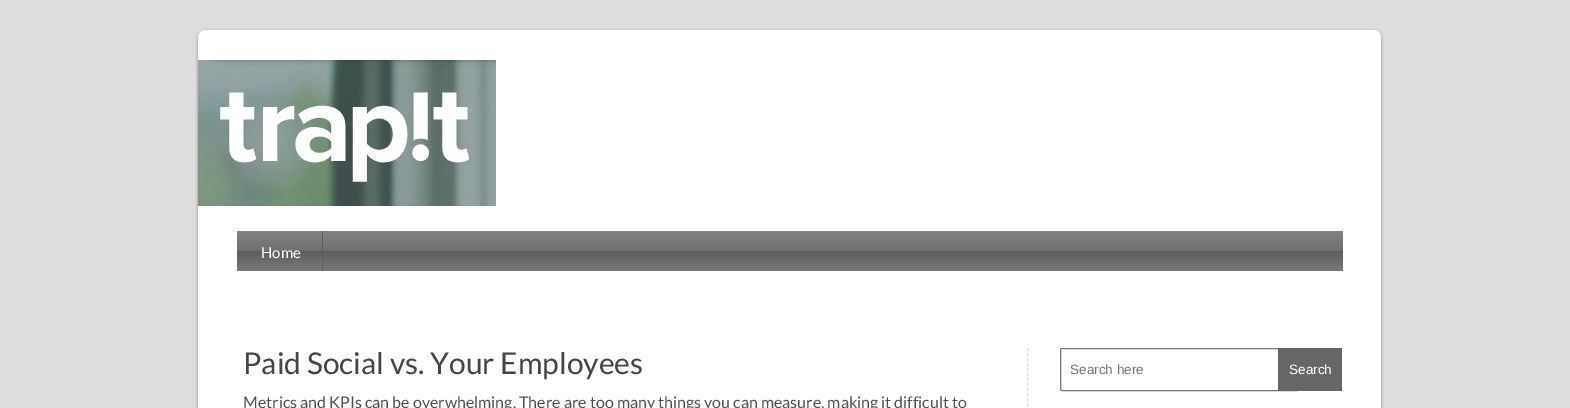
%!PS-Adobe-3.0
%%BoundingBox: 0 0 1570 408
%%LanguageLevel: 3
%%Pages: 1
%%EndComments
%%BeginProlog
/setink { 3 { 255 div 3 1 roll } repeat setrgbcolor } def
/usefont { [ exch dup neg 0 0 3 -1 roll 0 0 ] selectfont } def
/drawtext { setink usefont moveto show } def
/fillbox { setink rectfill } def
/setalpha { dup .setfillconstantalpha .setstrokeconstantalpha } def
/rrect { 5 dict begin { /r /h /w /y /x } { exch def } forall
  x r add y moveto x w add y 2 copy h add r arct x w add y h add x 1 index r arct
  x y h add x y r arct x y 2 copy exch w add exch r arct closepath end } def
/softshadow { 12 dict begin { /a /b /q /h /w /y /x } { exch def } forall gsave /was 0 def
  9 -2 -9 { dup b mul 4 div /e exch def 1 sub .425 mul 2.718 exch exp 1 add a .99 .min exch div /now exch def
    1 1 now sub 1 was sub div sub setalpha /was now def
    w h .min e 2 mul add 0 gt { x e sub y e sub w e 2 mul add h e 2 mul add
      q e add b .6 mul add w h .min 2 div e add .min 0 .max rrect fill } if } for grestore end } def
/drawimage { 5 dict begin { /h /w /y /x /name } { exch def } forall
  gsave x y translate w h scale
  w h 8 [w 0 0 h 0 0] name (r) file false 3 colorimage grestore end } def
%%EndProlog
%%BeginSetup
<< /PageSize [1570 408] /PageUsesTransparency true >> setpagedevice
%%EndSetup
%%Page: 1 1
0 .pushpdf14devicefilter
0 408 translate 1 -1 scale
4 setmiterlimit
0 0 1570 408 221 221 221 fillbox
136 136 136 setink
198 31 1183 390 8 1.5 1 softshadow
255 255 255 setink
206 30 moveto 1373 30 lineto 1377.5 30 1381 33.5 1381 38 curveto 1381 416 lineto 198 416 lineto 198 38 lineto 198 33.5 201.5 30 206 30 curveto closepath fill
(assets/img1.rgb) 198 60 298 146 drawimage
gsave 237 231 1106 40 2 rrect clip newpath
<< /ShadingType 2 /ColorSpace /DeviceRGB /Coords [237 271 237 231] /Extend [true true] /Function << /FunctionType 3 /Domain [0 1] /Functions [<< /FunctionType 2 /Domain [0 1] /C0 [0.471 0.471 0.471] /C1 [0.369 0.369 0.369] /N 1 >> << /FunctionType 2 /Domain [0 1] /C0 [0.369 0.369 0.369] /C1 [0.439 0.439 0.439] /N 1 >> << /FunctionType 2 /Domain [0 1] /C0 [0.439 0.439 0.439] /C1 [0.514 0.514 0.514] /N 1 >>] /Bounds [0.5 0.51] /Encode [0 1 0 1 0 1] >> >> shfill grestore
322 231 1 40 93 93 93 fillbox
(Home) 261 258 /Lato-Regular 15 255 255 255 drawtext
221 221 221 setink
[3 2] 0 setdash
1027.5 348 moveto 1027.5 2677 lineto stroke
(Paid Social vs. Your Employees) 243 374 /Lato-Regular 30 70 69 69 drawtext
(Metrics and KPIs can be overwhelming. There are too many things you can measure, making it difficult to) 243 408 /Lato-Regular 16 79 79 79 drawtext
118 118 118 setink
[] 0 setdash
1060.5 348.5 238 42 1.5 rrect stroke
(Search here) 1070 374 /LiberationSans-Regular 13.5 117 117 117 drawtext
1278 348 64 43 102 102 102 fillbox
(Search) 1289 374 /LiberationSans-Regular 13.5 255 255 255 drawtext
.poppdf14devicefilter showpage
%%EOF
